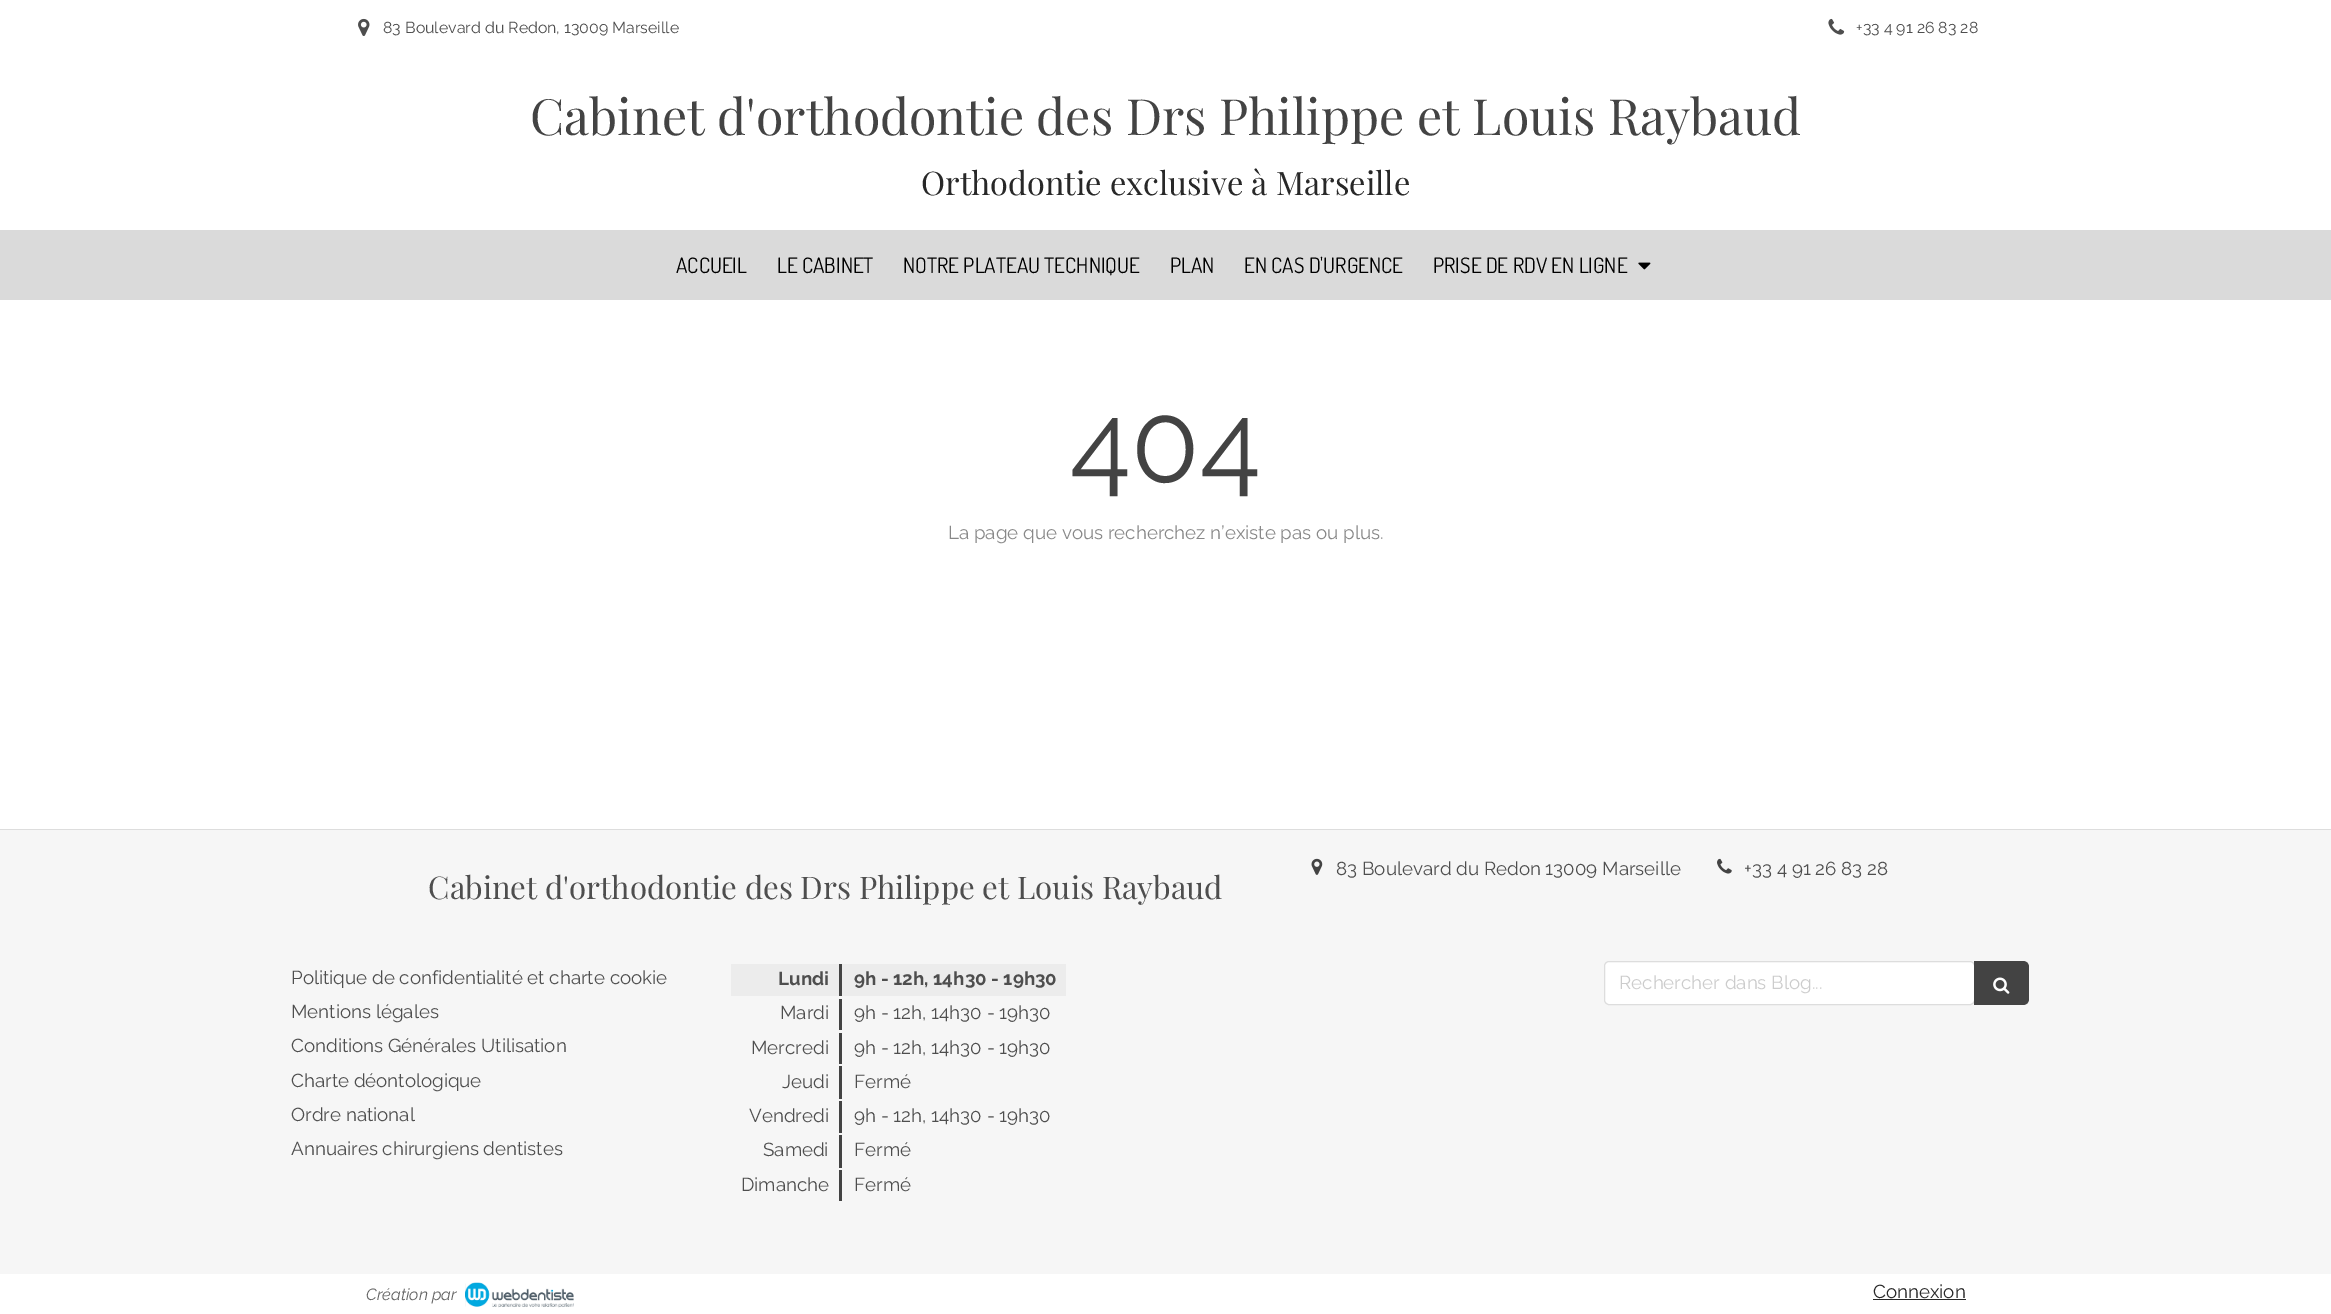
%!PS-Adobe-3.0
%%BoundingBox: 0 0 2331 1314
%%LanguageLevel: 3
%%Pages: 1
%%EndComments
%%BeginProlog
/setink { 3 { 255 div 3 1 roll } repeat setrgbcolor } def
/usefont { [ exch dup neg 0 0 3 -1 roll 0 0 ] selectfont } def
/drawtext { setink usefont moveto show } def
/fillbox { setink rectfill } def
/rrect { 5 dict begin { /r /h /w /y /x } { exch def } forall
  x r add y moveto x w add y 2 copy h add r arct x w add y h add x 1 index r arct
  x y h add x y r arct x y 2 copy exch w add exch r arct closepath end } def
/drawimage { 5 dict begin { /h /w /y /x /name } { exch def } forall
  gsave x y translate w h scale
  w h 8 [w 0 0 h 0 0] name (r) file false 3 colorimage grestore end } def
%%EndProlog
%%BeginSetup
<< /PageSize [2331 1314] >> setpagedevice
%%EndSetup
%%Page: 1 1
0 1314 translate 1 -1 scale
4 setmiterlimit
0 0 2331 1314 255 255 255 fillbox
(assets/img1.rgb) 358 18 12 18 drawimage
(83 Boulevard du Redon, 13009 Marseille) 383 33 /Raleway-Regular 15.9 78 78 78 drawtext
(assets/img2.rgb) 1828 18 17 17 drawimage
(+33 4 91 26 83 28) 1856 33 /Raleway-Regular 15.9 78 78 78 drawtext
(Cabinet d'orthodontie des Drs Philippe et Louis Raybaud) 530 135 /PlayfairDisplay-Regular 50 67 67 67 drawtext
(Orthodontie exclusive à Marseille) 921 195 /PlayfairDisplay-Regular 32.5 40 40 40 drawtext
0 230 2331 70 218 218 218 fillbox
(ACCUEIL) 676 273 /Dosis-Regular 21.25 0 0 0 drawtext
(LE CABINET) 777 273 /Dosis-Regular 21.25 0 0 0 drawtext
(NOTRE PLATEAU TECHNIQUE) 903 273 /Dosis-Regular 21.25 0 0 0 drawtext
(PLAN) 1170 273 /Dosis-Regular 21.25 0 0 0 drawtext
(EN CAS D'URGENCE) 1244 273 /Dosis-Regular 21.25 0 0 0 drawtext
(PRISE DE RDV EN LIGNE) 1433 273 /Dosis-Regular 21.25 0 0 0 drawtext
(assets/img3.rgb) 1638 262 13 8 drawimage
(404) 1070 482 /Raleway-Regular 112 67 67 67 drawtext
(La page que vous recherchez n’existe pas ou plus.) 948 539 /Raleway-Regular 18.75 136 136 136 drawtext
0 829 2331 1 221 221 221 fillbox
0 830 2331 444 246 246 246 fillbox
(assets/img4.rgb) 1311 858 12 17 drawimage
(83 Boulevard du Redon 13009 Marseille) 1336 875 /Raleway-Regular 18.75 78 78 78 drawtext
(assets/img5.rgb) 1717 858 15 16 drawimage
(+33 4 91 26 83 28) 1744 875 /Raleway-Regular 18.75 78 78 78 drawtext
(Cabinet d'orthodontie des Drs Philippe et Louis Raybaud) 428 899 /PlayfairDisplay-Regular 31.25 78 78 78 drawtext
(Politique de confidentialité et charte cookie) 291 984 /Raleway-Regular 18.75 78 78 78 drawtext
(Mentions légales) 291 1018 /Raleway-Regular 18.75 78 78 78 drawtext
(Conditions Générales Utilisation) 291 1052 /Raleway-Regular 18.75 78 78 78 drawtext
(Charte déontologique) 291 1087 /Raleway-Regular 18.75 78 78 78 drawtext
(Ordre national) 291 1121 /Raleway-Regular 18.75 78 78 78 drawtext
(Annuaires chirurgiens dentistes) 291 1155 /Raleway-Regular 18.75 78 78 78 drawtext
731 964 335 32 236 236 236 fillbox
839 964 3 32 67 67 67 fillbox
(Lundi) 778 985 /Raleway-Bold 18.75 78 78 78 drawtext
(9h - 12h, 14h30 - 19h30) 854 985 /Raleway-Bold 18.75 78 78 78 drawtext
839 999 3 31 67 67 67 fillbox
(Mardi) 780 1019 /Raleway-Regular 18.75 78 78 78 drawtext
(9h - 12h, 14h30 - 19h30) 854 1019 /Raleway-Regular 18.75 78 78 78 drawtext
839 1033 3 31 67 67 67 fillbox
(Mercredi) 751 1054 /Raleway-Regular 18.75 78 78 78 drawtext
(9h - 12h, 14h30 - 19h30) 854 1054 /Raleway-Regular 18.75 78 78 78 drawtext
839 1066 3 33 67 67 67 fillbox
(Jeudi) 782 1088 /Raleway-Regular 18.75 78 78 78 drawtext
(Fermé) 854 1088 /Raleway-Regular 18.75 78 78 78 drawtext
839 1101 3 32 67 67 67 fillbox
(Vendredi) 749 1122 /Raleway-Regular 18.75 78 78 78 drawtext
(9h - 12h, 14h30 - 19h30) 854 1122 /Raleway-Regular 18.75 78 78 78 drawtext
839 1135 3 33 67 67 67 fillbox
(Samedi) 763 1156 /Raleway-Regular 18.75 78 78 78 drawtext
(Fermé) 854 1156 /Raleway-Regular 18.75 78 78 78 drawtext
839 1170 3 31 67 67 67 fillbox
(Dimanche) 741 1191 /Raleway-Regular 18.75 78 78 78 drawtext
(Fermé) 854 1191 /Raleway-Regular 18.75 78 78 78 drawtext
255 255 255 setink
1604.5 961.5 370 43 4.5 rrect gsave fill grestore
221 221 221 setink
stroke
(Rechercher dans Blog...) 1619 989 /Raleway-Regular 18.75 204 204 204 drawtext
67 67 67 setink
1974 961 moveto 2023 961 lineto 2026.5 961 2029 963.5 2029 967 curveto 2029 999 lineto 2029 1002.5 2026.5 1005 2023 1005 curveto 1974 1005 lineto closepath fill
(assets/img6.rgb) 1993 977 17 17 drawimage
(Création par) 366 1300 /Raleway-Italic 16.25 100 100 100 drawtext
(assets/img7.rgb) 465 1282 109 26 drawimage
(Connexion) 1873 1298 /Raleway-Regular 18.75 40 40 40 drawtext
1873 1299 93 1 40 40 40 fillbox
showpage
%%EOF
